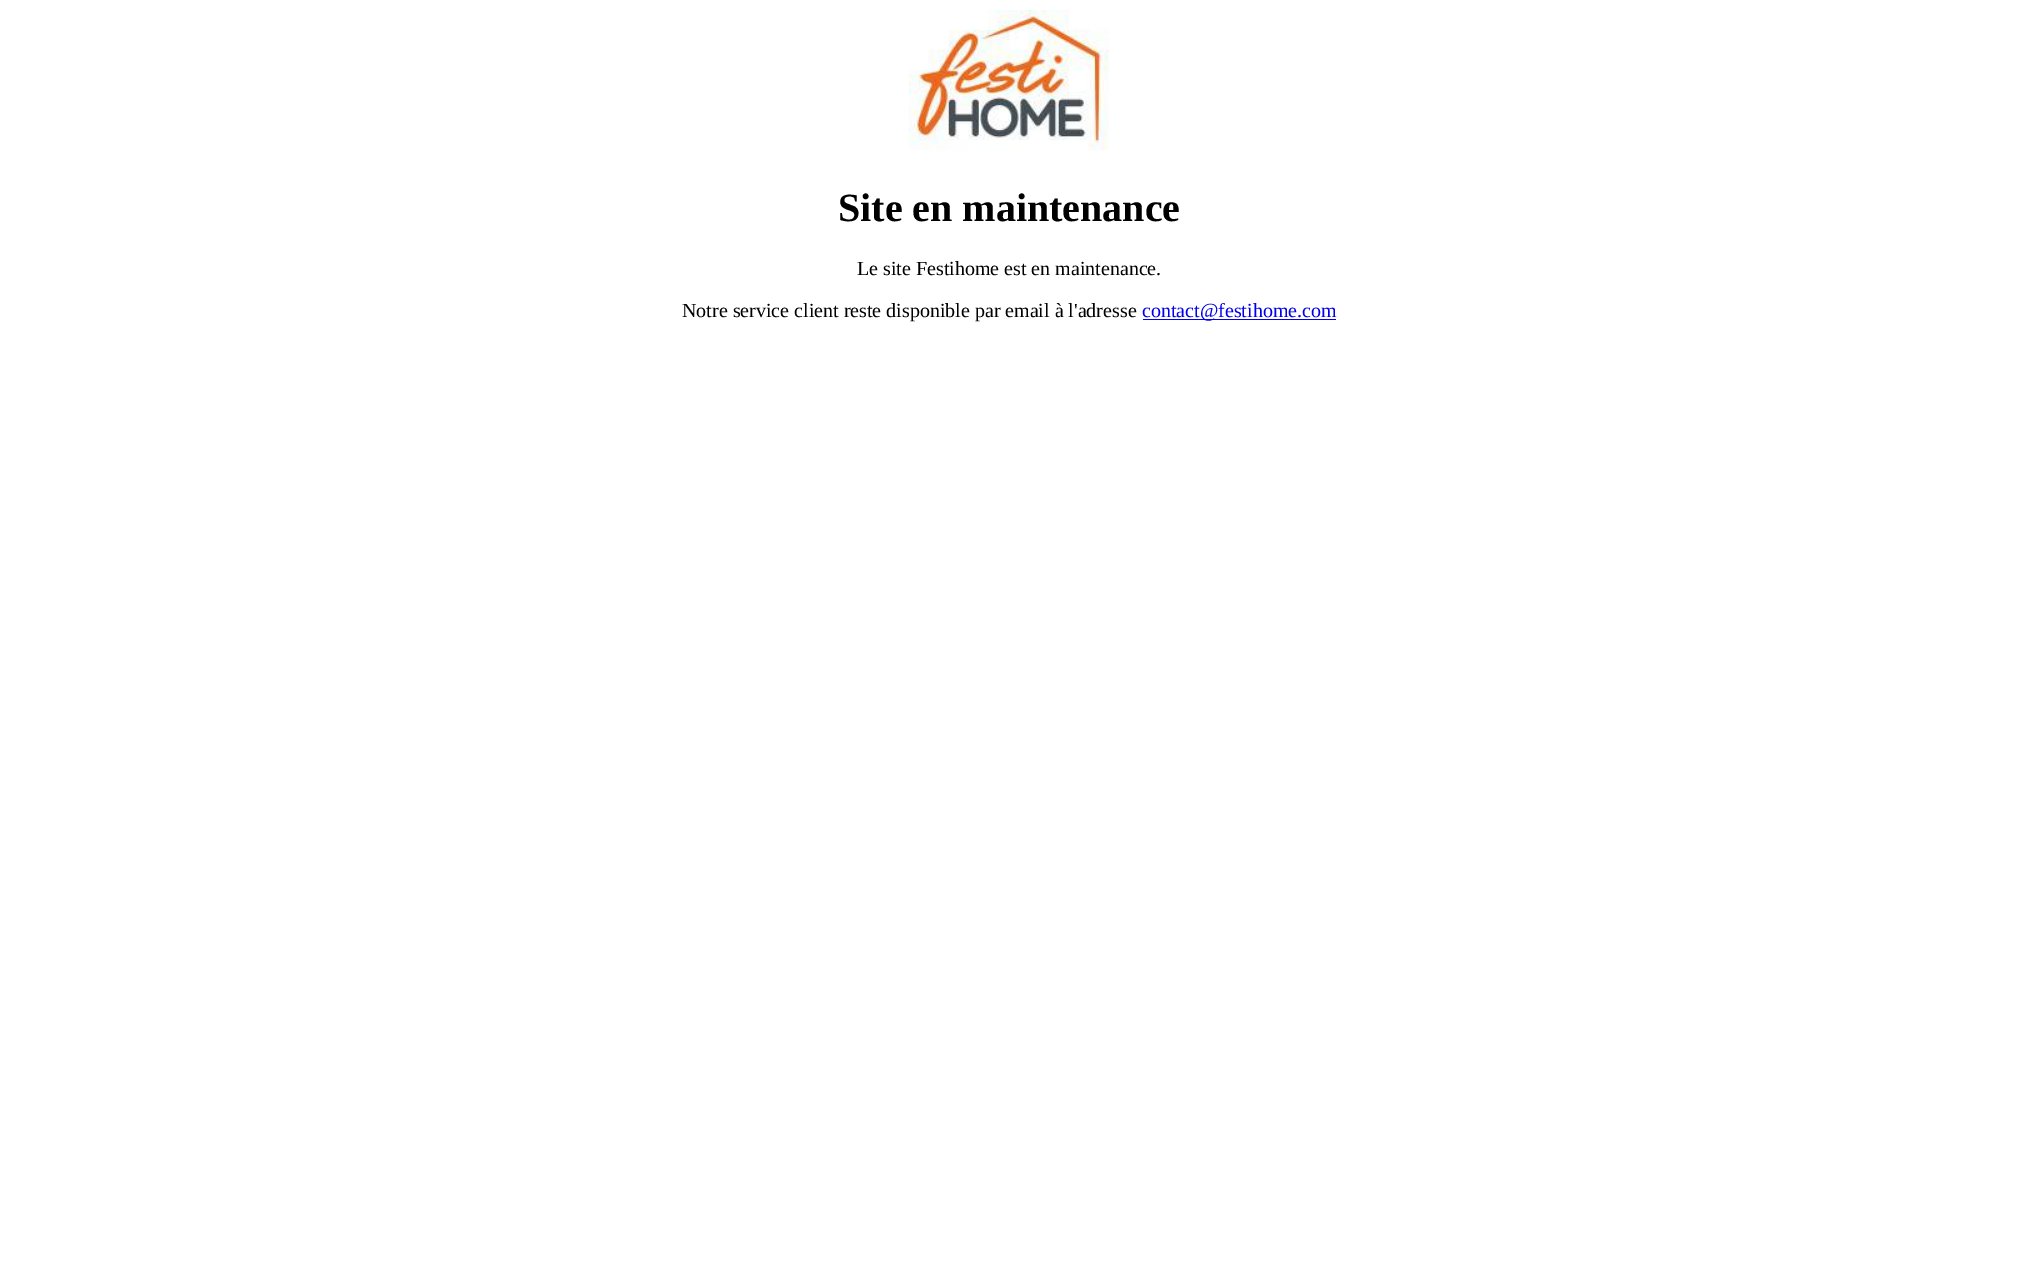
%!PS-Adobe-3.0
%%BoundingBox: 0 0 2018 1277
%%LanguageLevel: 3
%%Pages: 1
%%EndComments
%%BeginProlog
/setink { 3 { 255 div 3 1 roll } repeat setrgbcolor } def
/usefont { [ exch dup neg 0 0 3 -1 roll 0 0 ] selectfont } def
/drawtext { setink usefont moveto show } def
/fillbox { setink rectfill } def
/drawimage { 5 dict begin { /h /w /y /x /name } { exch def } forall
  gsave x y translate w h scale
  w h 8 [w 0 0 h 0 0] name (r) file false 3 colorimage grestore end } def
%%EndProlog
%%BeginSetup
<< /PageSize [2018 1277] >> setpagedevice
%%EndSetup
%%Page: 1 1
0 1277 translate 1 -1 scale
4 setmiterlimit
0 0 2018 1277 255 255 255 fillbox
(assets/img1.rgb) 908 10 202 141 drawimage
(Site en maintenance) 838 221 /LiberationSerif-Bold 40 0 0 0 drawtext
(Le site Festihome est en maintenance.) 857 275 /LiberationSerif-Regular 20 0 0 0 drawtext
(Notre service client reste disponible par email à l'adresse) 682 317 /LiberationSerif-Regular 20 0 0 0 drawtext
1143 319 193 1 0 0 238 fillbox
(contact@festihome.com) 1142 317 /LiberationSerif-Regular 20 0 0 238 drawtext
showpage
%%EOF
